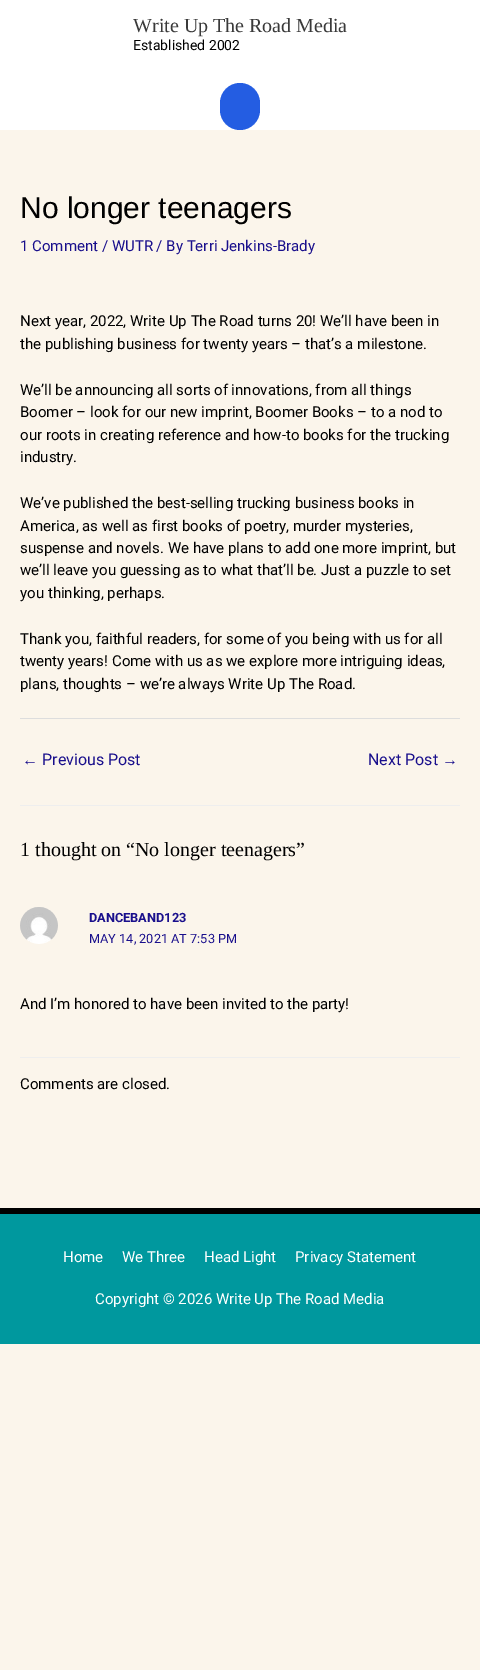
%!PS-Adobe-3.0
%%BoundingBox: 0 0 480 1670
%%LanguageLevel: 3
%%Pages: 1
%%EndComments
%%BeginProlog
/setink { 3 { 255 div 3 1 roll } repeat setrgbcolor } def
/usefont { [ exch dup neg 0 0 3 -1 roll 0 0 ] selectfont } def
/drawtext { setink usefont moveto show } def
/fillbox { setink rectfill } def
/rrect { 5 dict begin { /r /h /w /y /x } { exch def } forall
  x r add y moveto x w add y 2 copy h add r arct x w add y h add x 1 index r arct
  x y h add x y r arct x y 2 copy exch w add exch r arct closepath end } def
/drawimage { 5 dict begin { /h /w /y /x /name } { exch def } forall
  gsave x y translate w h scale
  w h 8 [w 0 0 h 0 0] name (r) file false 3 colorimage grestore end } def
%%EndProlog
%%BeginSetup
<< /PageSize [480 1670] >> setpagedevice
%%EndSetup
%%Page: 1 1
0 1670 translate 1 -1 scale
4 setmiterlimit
0 0 480 1670 251 245 235 fillbox
0 0 480 130 255 255 255 fillbox
(Write Up The Road Media) 133 32 /LiberationSerif-Regular 20 58 58 58 drawtext
(Established 2002) 133 50 /Roboto-Regular 14 0 0 0 drawtext
36 93 226 setink
220 83 40 47 20 rrect fill
(No longer teenagers) 20 218 /LiberationSans-Regular 30 0 0 0 drawtext
(1 Comment / WUTR / By Terri Jenkins-Brady) 20 251 /Roboto-Regular 15 25 15 140 drawtext
(Next year, 2022, Write Up The Road turns 20! We’ll have been in) 20 326 /Roboto-Regular 15 0 0 0 drawtext
(the publishing business for twenty years – that’s a milestone.) 20 349 /Roboto-Regular 15 0 0 0 drawtext
(We’ll be announcing all sorts of innovations, from all things) 20 395 /Roboto-Regular 15 0 0 0 drawtext
(Boomer – look for our new imprint, Boomer Books – to a nod to) 20 417 /Roboto-Regular 15 0 0 0 drawtext
(our roots in creating reference and how-to books for the trucking) 20 440 /Roboto-Regular 15 0 0 0 drawtext
(industry.) 20 462 /Roboto-Regular 15 0 0 0 drawtext
(We’ve published the best-selling trucking business books in) 20 508 /Roboto-Regular 15 0 0 0 drawtext
(America, as well as first books of poetry, murder mysteries,) 20 531 /Roboto-Regular 15 0 0 0 drawtext
(suspense and novels. We have plans to add one more imprint, but) 20 553 /Roboto-Regular 15 0 0 0 drawtext
(we’ll leave you guessing as to what that’ll be. Just a puzzle to set) 20 575 /Roboto-Regular 15 0 0 0 drawtext
(you thinking, perhaps.) 20 598 /Roboto-Regular 15 0 0 0 drawtext
(Thank you, faithful readers, for some of you being with us for all) 20 644 /Roboto-Regular 15 0 0 0 drawtext
(twenty years! Come with us as we explore more intriguing ideas,) 20 666 /Roboto-Regular 15 0 0 0 drawtext
(plans, thoughts – we’re always Write Up The Road.) 20 689 /Roboto-Regular 15 0 0 0 drawtext
20 718 440 1 221 221 221 fillbox
(←) 22 765 /LiberationSans-Regular 16 25 15 140 drawtext
(Previous Post) 42 765 /Roboto-Regular 16 25 15 140 drawtext
(Next Post) 368 765 /Roboto-Regular 16 25 15 140 drawtext
(→) 442 765 /LiberationSans-Regular 16 25 15 140 drawtext
20 805 440 1 238 238 238 fillbox
(1 thought on “No longer teenagers”) 20 856 /LiberationSerif-Regular 20 0 0 0 drawtext
20 1057 440 1 238 238 238 fillbox
(assets/img1.rgb) 20 907 38 37 drawimage
(DANCEBAND123) 89 922 /Roboto-Bold 12.75 25 15 140 drawtext
(MAY 14, 2021 AT 7:53 PM) 89 943 /Roboto-Regular 12.75 25 15 140 drawtext
(And I’m honored to have been invited to the party!) 20 1009 /Roboto-Regular 15 0 0 0 drawtext
(Comments are closed.) 20 1089 /Roboto-Regular 15 0 0 0 drawtext
0 1208 480 6 0 0 0 fillbox
0 1214 480 130 0 152 158 fillbox
(Home) 63 1262 /Roboto-Regular 15 255 255 255 drawtext
(We Three) 122 1262 /Roboto-Regular 15 255 255 255 drawtext
(Head Light) 204 1262 /Roboto-Regular 15 255 255 255 drawtext
(Privacy Statement) 295 1262 /Roboto-Regular 15 255 255 255 drawtext
(Copyright © 2026 Write Up The Road Media) 95 1304 /Roboto-Regular 15 255 255 255 drawtext
showpage
%%EOF
